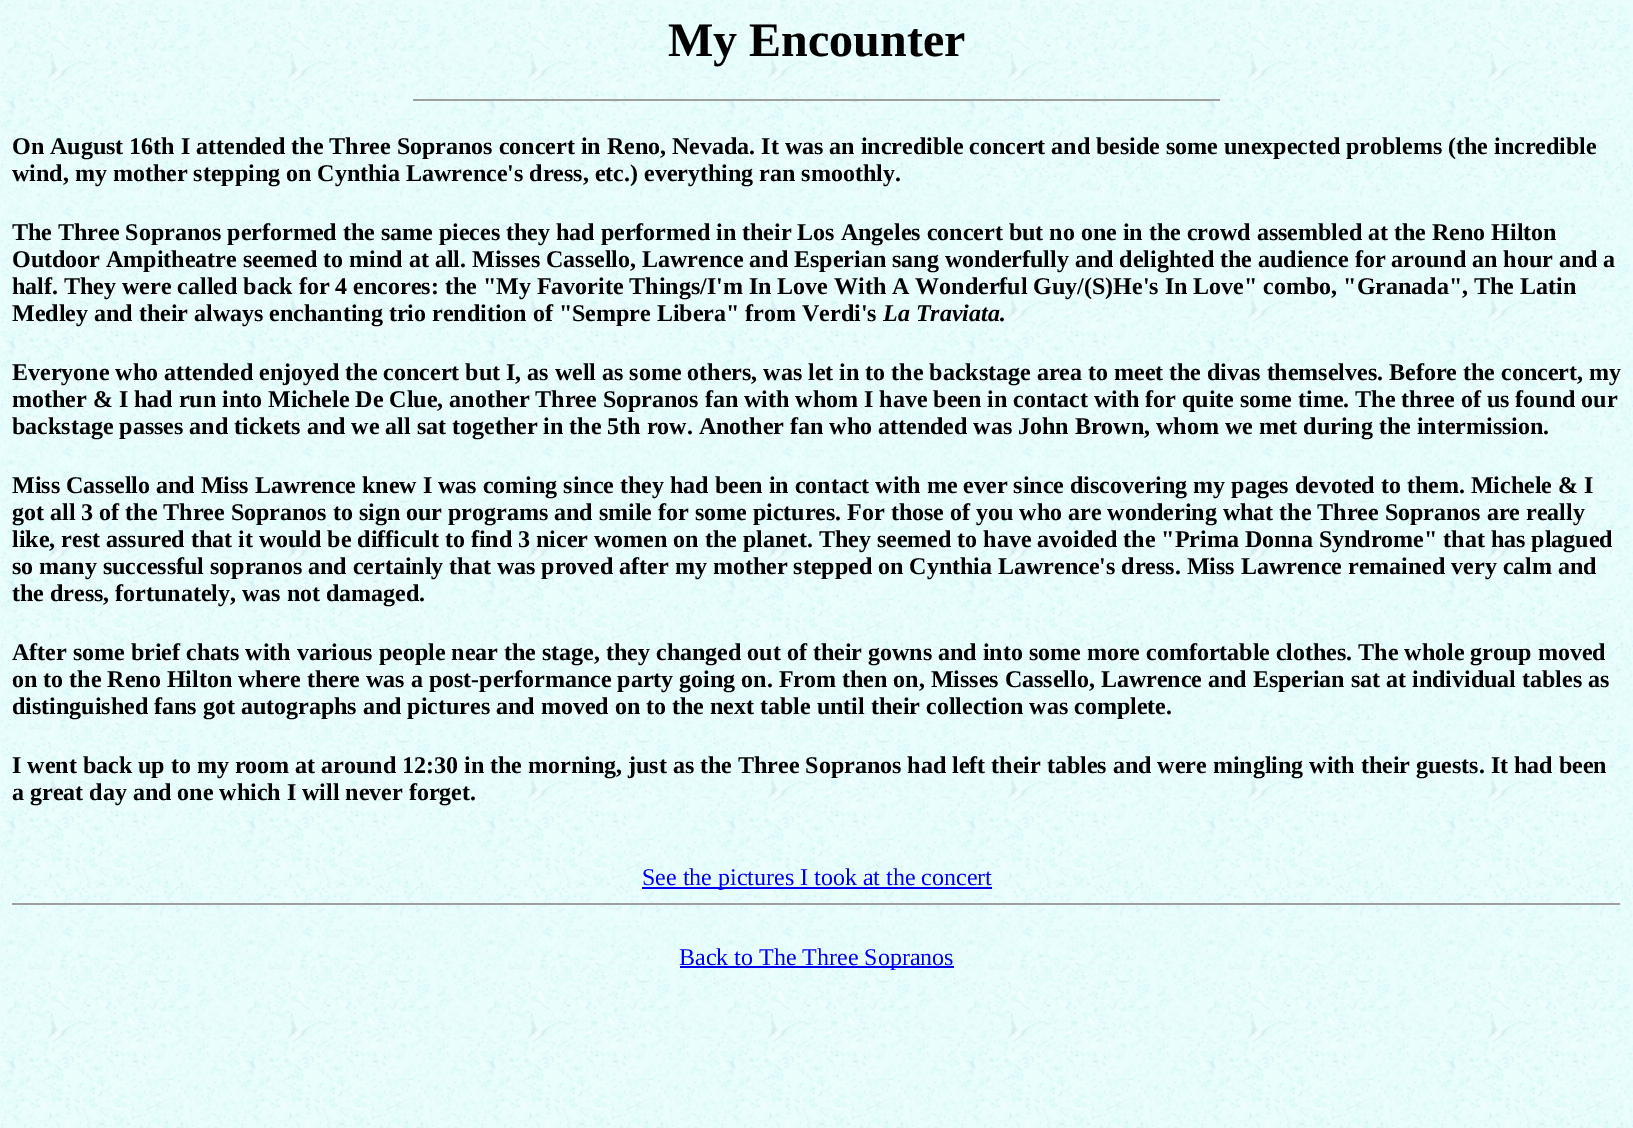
%!PS-Adobe-3.0
%%BoundingBox: 0 0 1633 1128
%%LanguageLevel: 3
%%Pages: 1
%%EndComments
%%BeginProlog
/setink { 3 { 255 div 3 1 roll } repeat setrgbcolor } def
/usefont { [ exch dup neg 0 0 3 -1 roll 0 0 ] selectfont } def
/drawtext { setink usefont moveto show } def
/fillbox { setink rectfill } def
/drawimage { 5 dict begin { /h /w /y /x /name } { exch def } forall
  gsave x y translate w h scale
  w h 8 [w 0 0 h 0 0] name (r) file false 3 colorimage grestore end } def
%%EndProlog
%%BeginSetup
<< /PageSize [1633 1128] >> setpagedevice
%%EndSetup
%%Page: 1 1
0 1128 translate 1 -1 scale
4 setmiterlimit
0 0 1633 1128 255 255 255 fillbox
(assets/img1.rgb) 0 0 1633 1128 drawimage
(My Encounter) 668 56 /LiberationSerif-Bold 48 0 0 0 drawtext
413 99 808 2 159 159 159 fillbox
1220 99 2 2 238 238 238 fillbox
(On August 16th I attended the Three Sopranos concert in Reno, Nevada. It was an incredible concert and beside some unexpected problems \(the incredible) 12 154 /LiberationSerif-Bold 24 0 0 0 drawtext
(wind, my mother stepping on Cynthia Lawrence's dress, etc.\) everything ran smoothly.) 12 181 /LiberationSerif-Bold 24 0 0 0 drawtext
(The Three Sopranos performed the same pieces they had performed in their Los Angeles concert but no one in the crowd assembled at the Reno Hilton) 12 240 /LiberationSerif-Bold 24 0 0 0 drawtext
(Outdoor Ampitheatre seemed to mind at all. Misses Cassello, Lawrence and Esperian sang wonderfully and delighted the audience for around an hour and a) 12 267 /LiberationSerif-Bold 24 0 0 0 drawtext
(half. They were called back for 4 encores: the "My Favorite Things/I'm In Love With A Wonderful Guy/\(S\)He's In Love" combo, "Granada", The Latin) 12 294 /LiberationSerif-Bold 24 0 0 0 drawtext
(Medley and their always enchanting trio rendition of "Sempre Libera" from Verdi's) 12 321 /LiberationSerif-Bold 24 0 0 0 drawtext
(La Traviata) 883 321 /LiberationSerif-BoldItalic 24 0 0 0 drawtext
(.) 999 321 /LiberationSerif-Bold 24 0 0 0 drawtext
(Everyone who attended enjoyed the concert but I, as well as some others, was let in to the backstage area to meet the divas themselves. Before the concert, my) 12 380 /LiberationSerif-Bold 24 0 0 0 drawtext
(mother & I had run into Michele De Clue, another Three Sopranos fan with whom I have been in contact with for quite some time. The three of us found our) 12 407 /LiberationSerif-Bold 24 0 0 0 drawtext
(backstage passes and tickets and we all sat together in the 5th row. Another fan who attended was John Brown, whom we met during the intermission.) 12 434 /LiberationSerif-Bold 24 0 0 0 drawtext
(Miss Cassello and Miss Lawrence knew I was coming since they had been in contact with me ever since discovering my pages devoted to them. Michele & I) 12 493 /LiberationSerif-Bold 24 0 0 0 drawtext
(got all 3 of the Three Sopranos to sign our programs and smile for some pictures. For those of you who are wondering what the Three Sopranos are really) 12 520 /LiberationSerif-Bold 24 0 0 0 drawtext
(like, rest assured that it would be difficult to find 3 nicer women on the planet. They seemed to have avoided the "Prima Donna Syndrome" that has plagued) 12 547 /LiberationSerif-Bold 24 0 0 0 drawtext
(so many successful sopranos and certainly that was proved after my mother stepped on Cynthia Lawrence's dress. Miss Lawrence remained very calm and) 12 574 /LiberationSerif-Bold 24 0 0 0 drawtext
(the dress, fortunately, was not damaged.) 12 601 /LiberationSerif-Bold 24 0 0 0 drawtext
(After some brief chats with various people near the stage, they changed out of their gowns and into some more comfortable clothes. The whole group moved) 12 660 /LiberationSerif-Bold 24 0 0 0 drawtext
(on to the Reno Hilton where there was a post-performance party going on. From then on, Misses Cassello, Lawrence and Esperian sat at individual tables as) 12 687 /LiberationSerif-Bold 24 0 0 0 drawtext
(distinguished fans got autographs and pictures and moved on to the next table until their collection was complete.) 12 714 /LiberationSerif-Bold 24 0 0 0 drawtext
(I went back up to my room at around 12:30 in the morning, just as the Three Sopranos had left their tables and were mingling with their guests. It had been) 12 773 /LiberationSerif-Bold 24 0 0 0 drawtext
(a great day and one which I will never forget.) 12 800 /LiberationSerif-Bold 24 0 0 0 drawtext
642 887 350 2 0 0 238 fillbox
(See the pictures I took at the concert) 642 885 /LiberationSerif-Regular 24 0 0 238 drawtext
12 903 1610 2 159 159 159 fillbox
1620 903 2 2 238 238 238 fillbox
680 966 274 2 0 0 238 fillbox
(Back to The Three Sopranos) 679 965 /LiberationSerif-Regular 24 0 0 238 drawtext
showpage
%%EOF
